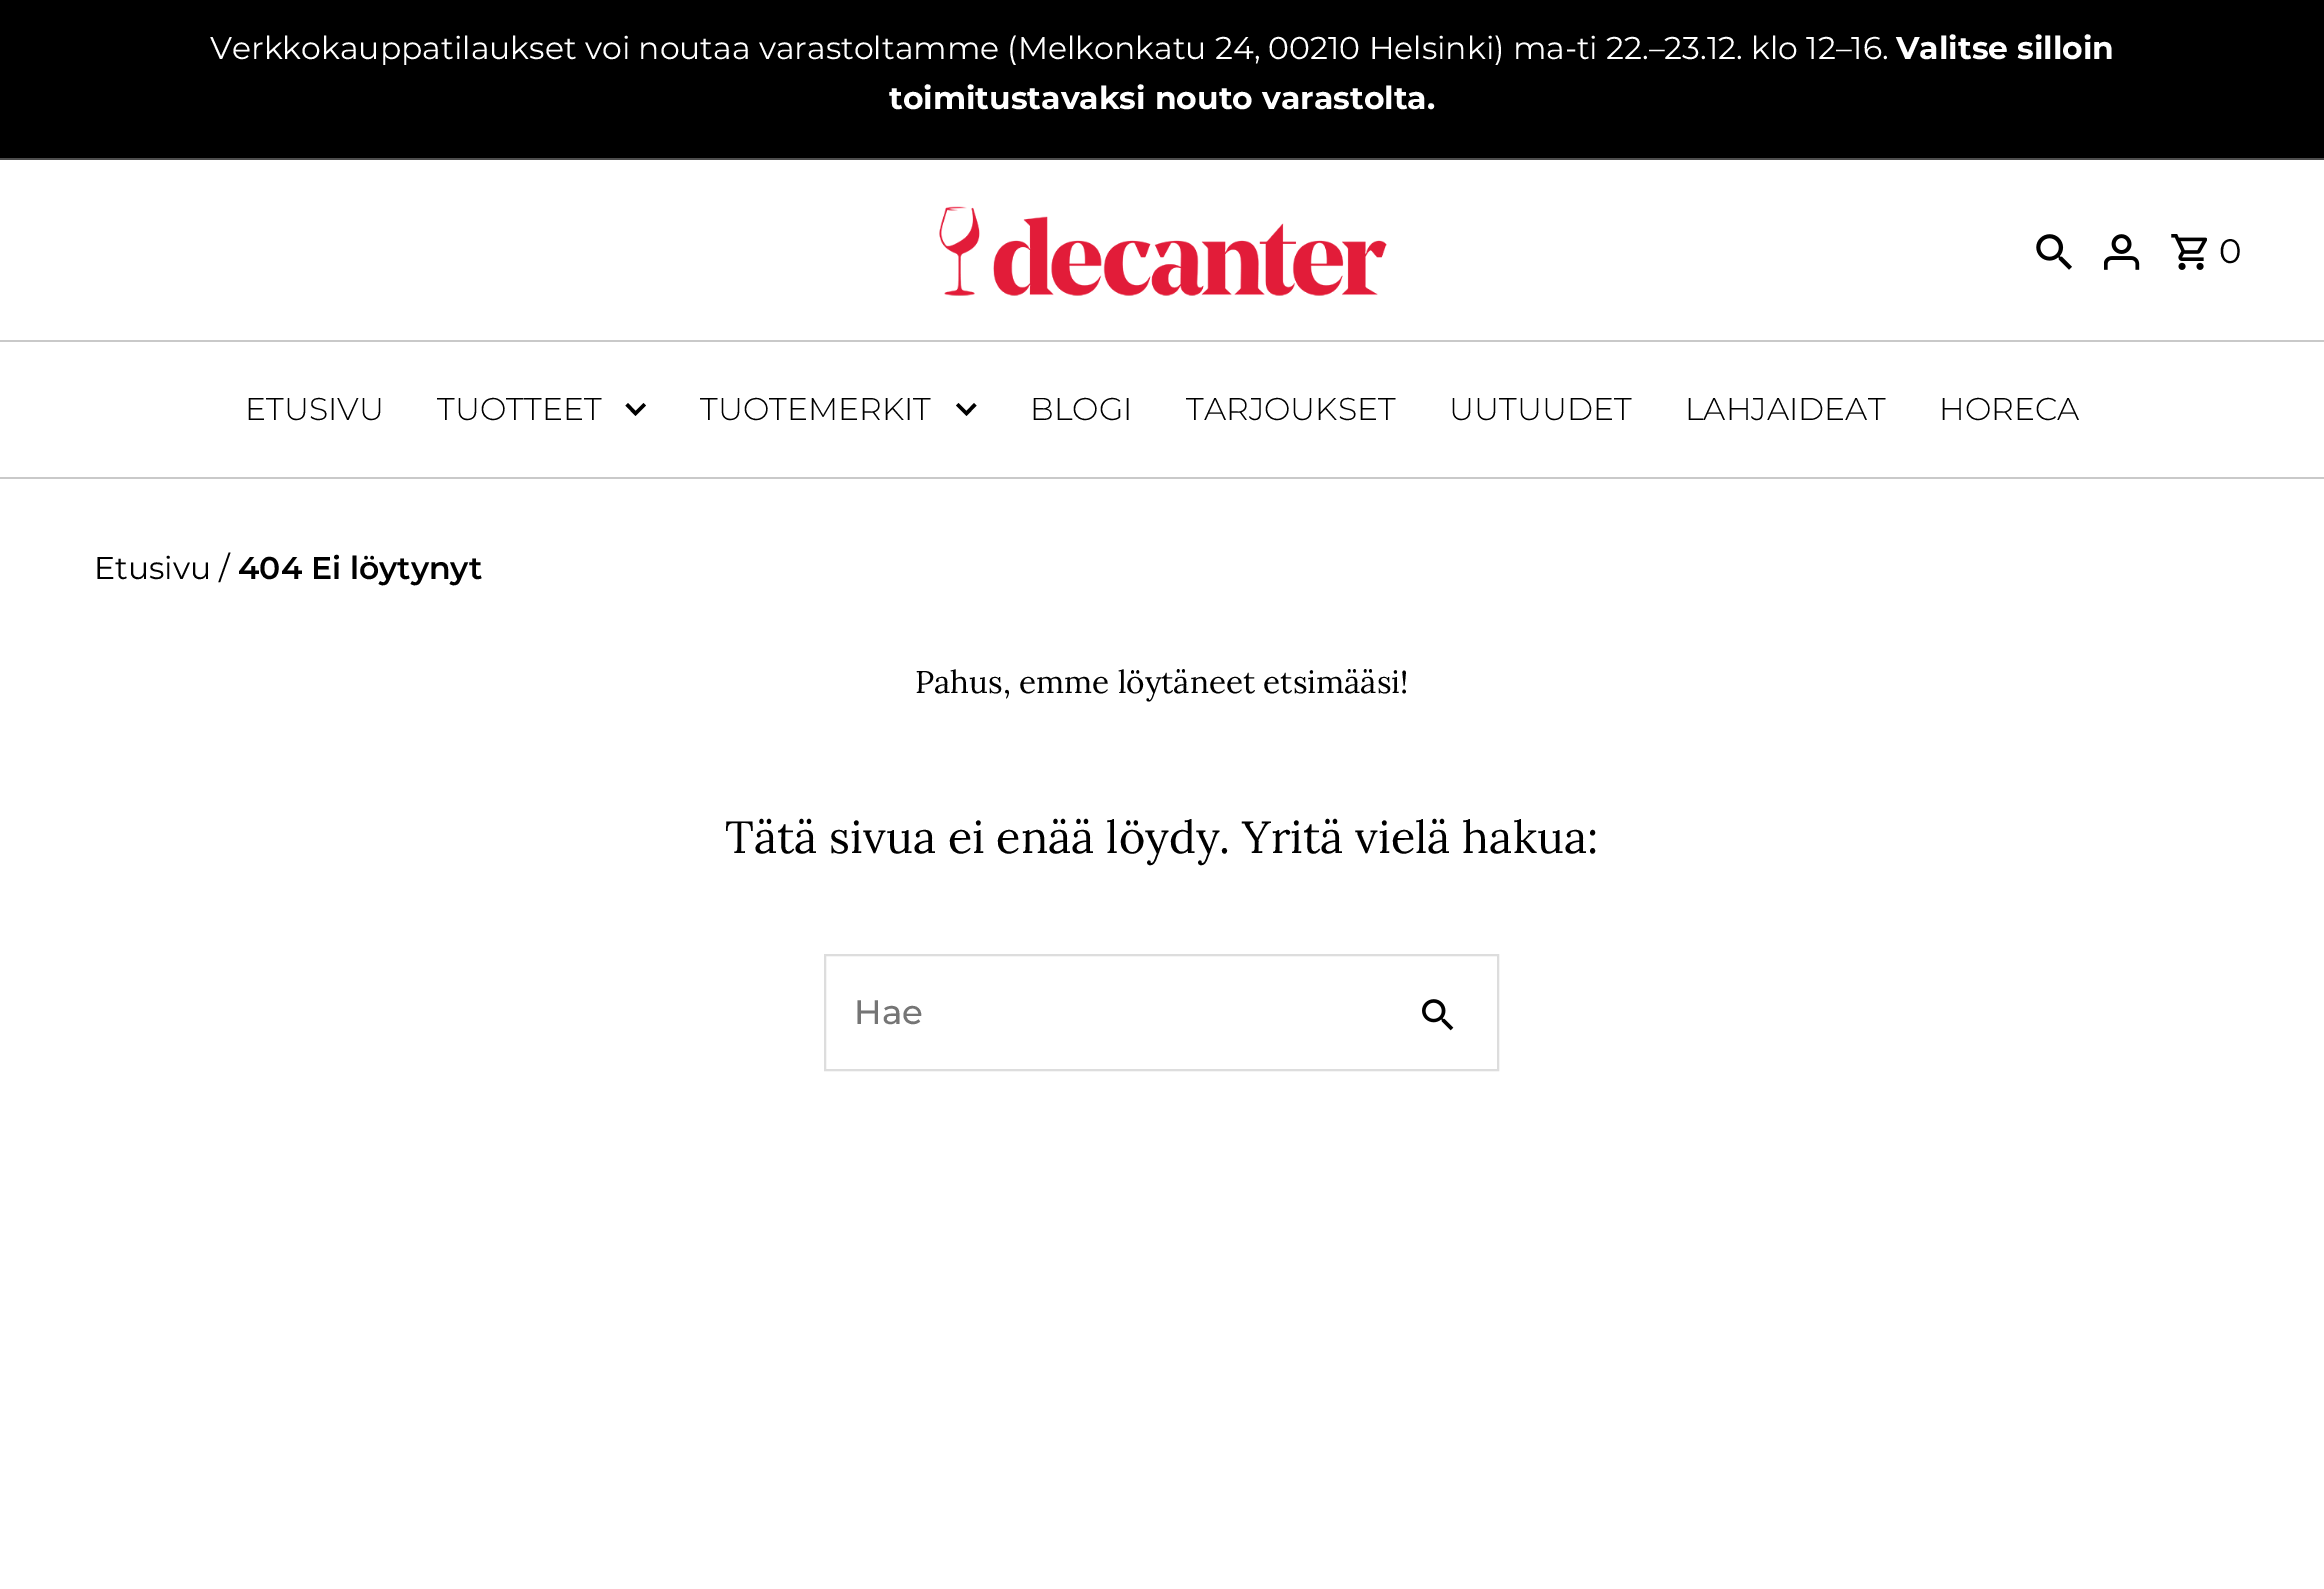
%!PS-Adobe-3.0
%%BoundingBox: 0 0 2324 1589
%%LanguageLevel: 3
%%Pages: 1
%%EndComments
%%BeginProlog
/setink { 3 { 255 div 3 1 roll } repeat setrgbcolor } def
/usefont { [ exch dup neg 0 0 3 -1 roll 0 0 ] selectfont } def
/drawtext { setink usefont moveto show } def
/fillbox { setink rectfill } def
/drawimage { 5 dict begin { /h /w /y /x /name } { exch def } forall
  gsave x y translate w h scale
  w h 8 [w 0 0 h 0 0] name (r) file false 3 colorimage grestore end } def
%%EndProlog
%%BeginSetup
<< /PageSize [2324 1589] >> setpagedevice
%%EndSetup
%%Page: 1 1
0 1589 translate 1 -1 scale
4 setmiterlimit
0 0 2324 1589 255 255 255 fillbox
0 158 2324 2 77 77 77 fillbox
0 0 2324 158 0 0 0 fillbox
(Verkkokauppatilaukset voi noutaa varastoltamme \(Melkonkatu 24, 00210 Helsinki\) ma-ti 22.–23.12. klo 12–16.) 210 59 /Montserrat-Regular 31.5 255 255 255 drawtext
(Valitse silloin) 1896 59 /Montserrat-Bold 31.5 255 255 255 drawtext
(toimitustavaksi nouto varastolta.) 889 109 /Montserrat-Bold 31.5 255 255 255 drawtext
0 340 2324 2 201 201 201 fillbox
(assets/img1.rgb) 939 206 448 90 drawimage
(assets/img2.rgb) 2036 234 36 36 drawimage
(assets/img3.rgb) 2104 234 36 36 drawimage
(assets/img4.rgb) 2171 234 36 36 drawimage
/Montserrat-Regular 34 usefont
0 0 0 setink
2219 263 moveto 2 0 (0) ashow
0 477 2324 2 201 201 201 fillbox
(ETUSIVU) 245 420 /Montserrat-Light 31.5 0 0 0 drawtext
(TUOTTEET) 437 420 /Montserrat-Light 31.5 0 0 0 drawtext
643.5 403 moveto 635.5 411 lineto 628 403 lineto 625.5 405.5 lineto 635.5 416 lineto 646 405.5 lineto closepath fill
(TUOTEMERKIT) 700 420 /Montserrat-Light 31.5 0 0 0 drawtext
974 403 moveto 966.5 411 lineto 958.5 403 lineto 956 405.5 lineto 966.5 416 lineto 976.5 405.5 lineto closepath fill
(BLOGI) 1030 420 /Montserrat-Light 31.5 0 0 0 drawtext
(TARJOUKSET) 1186 420 /Montserrat-Light 31.5 0 0 0 drawtext
(UUTUUDET) 1449 420 /Montserrat-Light 31.5 0 0 0 drawtext
(LAHJAIDEAT) 1685 420 /Montserrat-Light 31.5 0 0 0 drawtext
(HORECA) 1939 420 /Montserrat-Light 31.5 0 0 0 drawtext
(Etusivu /) 94 579 /Montserrat-Regular 31.5 0 0 0 drawtext
(404 Ei löytynyt) 238 579 /Montserrat-SemiBold 31.5 0 0 0 drawtext
(Pahus, emme löytäneet etsimääsi!) 915 693 /Lora-Regular 31.5 0 0 0 drawtext
(Tätä sivua ei enää löydy. Yritä vielä hakua:) 725 853 /Lora-Regular 45 0 0 0 drawtext
221 221 221 setink
2 setlinewidth
825 955 673 115 rectstroke
(Hae) 854 1024 /Montserrat-Medium 34 117 117 117 drawtext
(assets/img5.rgb) 1422 999 32 32 drawimage
showpage
%%EOF
